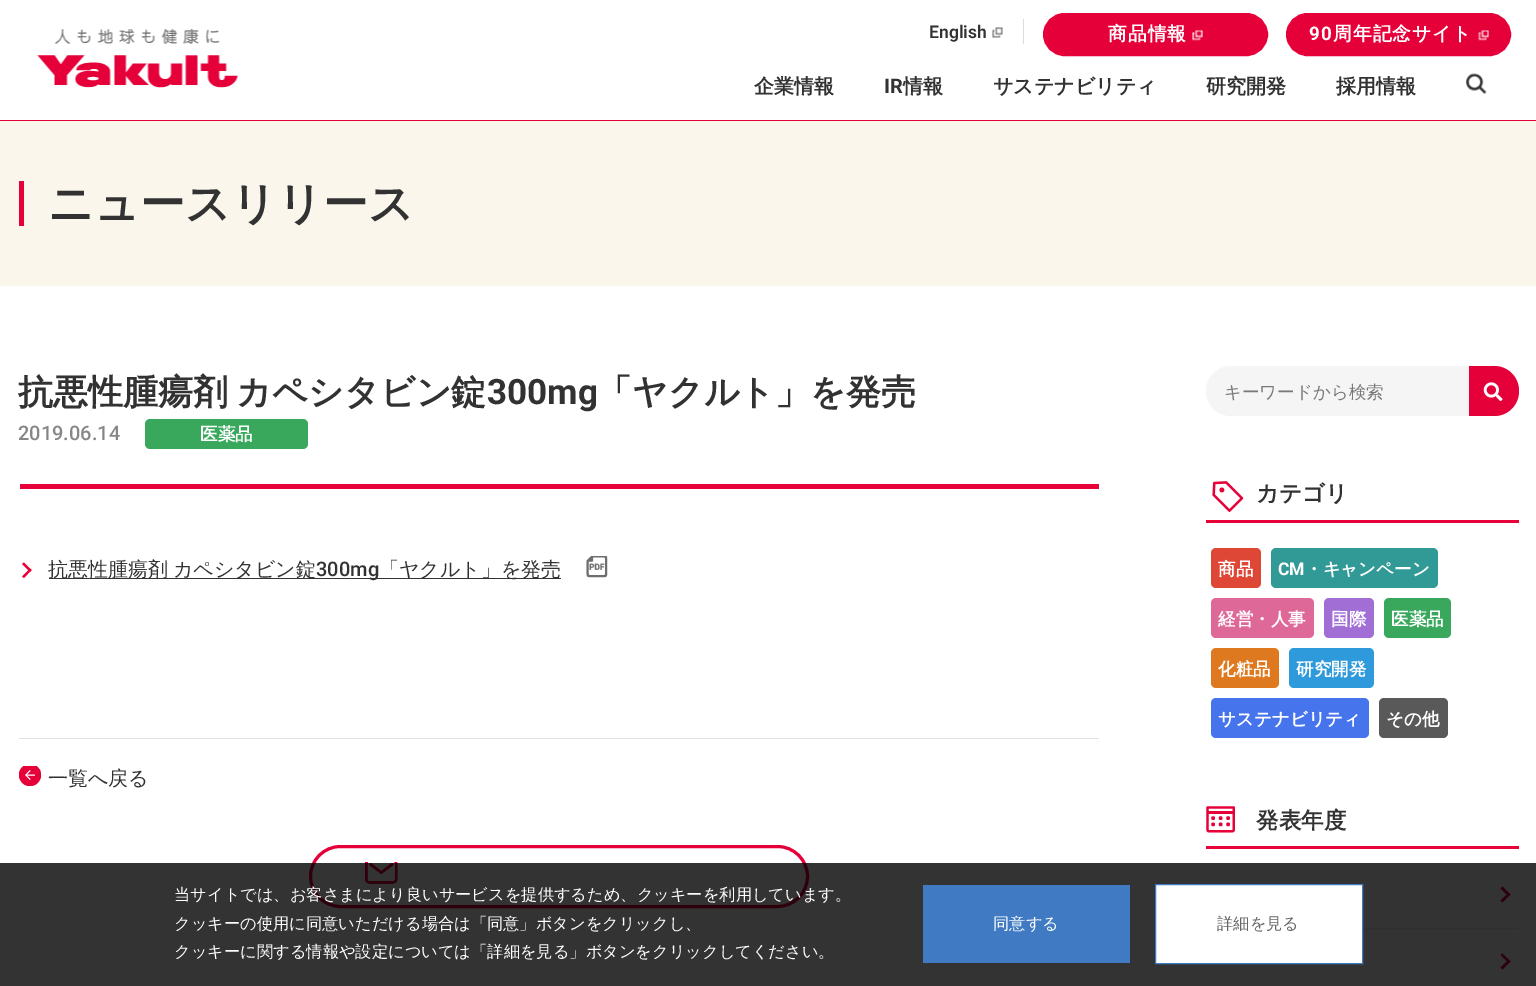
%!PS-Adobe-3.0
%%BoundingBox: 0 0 1536 986
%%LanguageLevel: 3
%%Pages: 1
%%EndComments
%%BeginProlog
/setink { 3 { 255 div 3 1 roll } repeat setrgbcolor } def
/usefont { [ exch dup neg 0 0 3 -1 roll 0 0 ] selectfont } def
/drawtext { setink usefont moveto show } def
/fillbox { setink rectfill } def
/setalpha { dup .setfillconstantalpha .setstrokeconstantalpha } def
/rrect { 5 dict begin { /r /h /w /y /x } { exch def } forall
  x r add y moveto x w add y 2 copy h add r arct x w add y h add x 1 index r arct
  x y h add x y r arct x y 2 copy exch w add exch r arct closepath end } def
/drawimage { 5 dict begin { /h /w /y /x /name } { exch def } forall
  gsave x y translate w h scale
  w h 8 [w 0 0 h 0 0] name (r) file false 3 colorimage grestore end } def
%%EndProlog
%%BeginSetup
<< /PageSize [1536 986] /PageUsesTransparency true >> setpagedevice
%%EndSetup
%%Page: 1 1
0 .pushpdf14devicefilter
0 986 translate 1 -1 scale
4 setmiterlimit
0 0 1536 986 255 255 255 fillbox
0 120 1536 1 230 0 57 fillbox
(assets/img1.rgb) 37 29 201 59 drawimage
(English) 929 38 /Roboto-SemiBold 17.5 50 50 50 drawtext
(assets/img2.rgb) 992 27 11 11 drawimage
1023 19 1 25 220 220 220 fillbox
230 0 57 setink
1044.5 14.5 222 40 20 rrect gsave fill grestore
3 setlinewidth
stroke
/WenQuanYiZenHei-Bold 18.75 usefont
255 255 255 setink
1108 40 moveto 1 0 (商品情報) ashow
(assets/img3.rgb) 1192 30 11 11 drawimage
230 0 57 setink
1287.5 14.5 222 40 20 rrect gsave fill grestore
stroke
/Roboto-Bold 18.75 usefont
255 255 255 setink
1309 40 moveto 1 0 (90) ashow
/WenQuanYiZenHei-Bold 18.75 usefont
1333 40 moveto 1 0 (周年記念サイト) ashow
(assets/img4.rgb) 1478 30 11 11 drawimage
(企業情報) 754 93 /WenQuanYiZenHei-Bold 20 50 50 50 drawtext
(IR) 884 93 /Roboto-Bold 20 50 50 50 drawtext
(情報) 903 93 /WenQuanYiZenHei-Bold 20 50 50 50 drawtext
(サステナビリティ) 993 93 /WenQuanYiZenHei-Bold 20 50 50 50 drawtext
(研究開発) 1206 93 /WenQuanYiZenHei-Bold 20 50 50 50 drawtext
(採用情報) 1336 93 /WenQuanYiZenHei-Bold 20 50 50 50 drawtext
(assets/img5.rgb) 1466 73 21 21 drawimage
0 121 1536 165 251 246 236 fillbox
19 181 5 45 230 0 57 fillbox
(ニュースリリース) 48 219 /WenQuanYiZenHei-Bold 45 50 50 50 drawtext
/WenQuanYiZenHei-Bold 35 usefont
18 404 moveto -2 0 32 (抗悪性腫瘍剤 カペシタビン錠) widthshow
(300mg) 487 404 /Roboto-Bold 35 50 50 50 drawtext
(「ヤクルト」を発売) 597 404 /WenQuanYiZenHei-Bold 35 50 50 50 drawtext
20 484 1079 5 231 2 57 fillbox
(2019.06.14) 18 440 /Roboto-Medium 20 134 134 134 drawtext
57 168 93 setink
145 419 163 30 5 rrect fill
(医薬品) 200 440 /WenQuanYiZenHei-Bold 17.5 255 255 255 drawtext
19 738 1080 1 225 225 225 fillbox
231 2 57 setink
24 562.5 moveto 31.5 570 lineto 30 572 lineto 22 564 lineto closepath fill
30 568.5 moveto 31.5 570 lineto 24 578 lineto 22 576.5 lineto closepath fill
49 578 512 1 51 51 51 fillbox
/WenQuanYiZenHei-Medium 20 usefont
50 50 50 setink
48 576 moveto -1 0 32 (抗悪性腫瘍剤 カペシタビン錠) widthshow
(300mg) 316 576 /Roboto-Medium 20 50 50 50 drawtext
(「ヤクルト」を発売) 379 576 /WenQuanYiZenHei-Medium 20 50 50 50 drawtext
(assets/img6.rgb) 586 556 22 22 drawimage
(assets/img7.rgb) 19 766 22 20 drawimage
(一覧へ戻る) 48 785 /WenQuanYiZenHei-Medium 20 50 50 50 drawtext
230 0 57 setink
310.5 846.5 497 60 30 rrect stroke
(assets/img8.rgb) 365 862 33 22 drawimage
245 245 245 setink
1231 366 moveto 1469 366 lineto 1469 416 lineto 1231 416 lineto 1217 416 1206 405 1206 391 curveto 1206 377 1217 366 1231 366 curveto closepath fill
(キーワードから検索) 1224 398 /WenQuanYiZenHei-Medium 17.5 120 120 120 drawtext
230 0 57 setink
1469 366 moveto 1494 366 lineto 1508 366 1519 377 1519 391 curveto 1519 405 1508 416 1494 416 curveto 1469 416 lineto closepath fill
(assets/img9.rgb) 1483 382 20 19 drawimage
(assets/img10.rgb) 1212 481 32 31 drawimage
1206 520 313 3 231 2 57 fillbox
(カテゴリ) 1256 501 /WenQuanYiZenHei-Bold 22.5 50 50 50 drawtext
222 70 54 setink
1211 548 50 40 5 rrect fill
(商品) 1218 575 /WenQuanYiZenHei-Bold 17.5 255 255 255 drawtext
50 154 150 setink
1271 548 167 40 5 rrect fill
(CM) 1278 575 /Roboto-Bold 17.5 255 255 255 drawtext
(・キャンペーン) 1305 575 /WenQuanYiZenHei-Bold 17.5 255 255 255 drawtext
222 104 152 setink
1211 598 103 40 5 rrect fill
(経営・人事) 1218 625 /WenQuanYiZenHei-Bold 17.5 255 255 255 drawtext
161 110 214 setink
1324 598 50 40 5 rrect fill
(国際) 1331 625 /WenQuanYiZenHei-Bold 17.5 255 255 255 drawtext
57 168 93 setink
1384 598 67 40 5 rrect fill
(医薬品) 1391 625 /WenQuanYiZenHei-Bold 17.5 255 255 255 drawtext
222 121 31 setink
1211 648 68 40 5 rrect fill
(化粧品) 1218 675 /WenQuanYiZenHei-Bold 17.5 255 255 255 drawtext
46 153 219 setink
1289 648 85 40 5 rrect fill
(研究開発) 1296 675 /WenQuanYiZenHei-Bold 17.5 255 255 255 drawtext
70 116 237 setink
1211 698 158 40 5 rrect fill
(サステナビリティ) 1218 725 /WenQuanYiZenHei-Bold 17.5 255 255 255 drawtext
89 89 89 setink
1379 698 69 40 5 rrect fill
(その他) 1386 725 /WenQuanYiZenHei-Bold 17.5 255 255 255 drawtext
(assets/img11.rgb) 1206 806 29 27 drawimage
1206 846 313 3 231 2 57 fillbox
(発表年度) 1256 828 /WenQuanYiZenHei-Bold 22.5 50 50 50 drawtext
1363 928 156 1 235 235 235 fillbox
231 2 57 setink
1502.5 886.5 moveto 1510.5 894.5 lineto 1508.5 896.5 lineto 1500.5 888.5 lineto closepath fill
1508.5 893 moveto 1510.5 894.5 lineto 1502.5 902.5 lineto 1500.5 900.5 lineto closepath fill
1502.5 953.5 moveto 1510.5 961.5 lineto 1508.5 963 lineto 1500.5 955 lineto closepath fill
1508.5 959.5 moveto 1510.5 961.5 lineto 1502.5 969.5 lineto 1500.5 967.5 lineto closepath fill
0.8 setalpha
0 863 1536 123 0 0 0 fillbox
1 setalpha
(当サイトでは、お客さまにより良いサービスを提供するため、クッキーを利用しています。) 174 900 /WenQuanYiZenHei-Medium 16.25 255 255 255 drawtext
(クッキーの使用に同意いただける場合は「同意」ボタンをクリックし、) 174 929 /WenQuanYiZenHei-Medium 16.25 255 255 255 drawtext
(クッキーに関する情報や設定については「詳細を見る」ボタンをクリックしてください。) 174 957 /WenQuanYiZenHei-Medium 16.25 255 255 255 drawtext
923 885 207 78 63 122 195 fillbox
(同意する) 993 929 /WenQuanYiZenHei-Medium 16.25 255 255 255 drawtext
1155.5 884.5 moveto 1362.5 884.5 lineto 1362.5 963.5 lineto 1155.5 963.5 lineto closepath gsave fill grestore
63 122 195 setink
1 setlinewidth
stroke
(詳細を見る) 1217 929 /WenQuanYiZenHei-Medium 16.25 102 102 102 drawtext
.poppdf14devicefilter showpage
%%EOF
